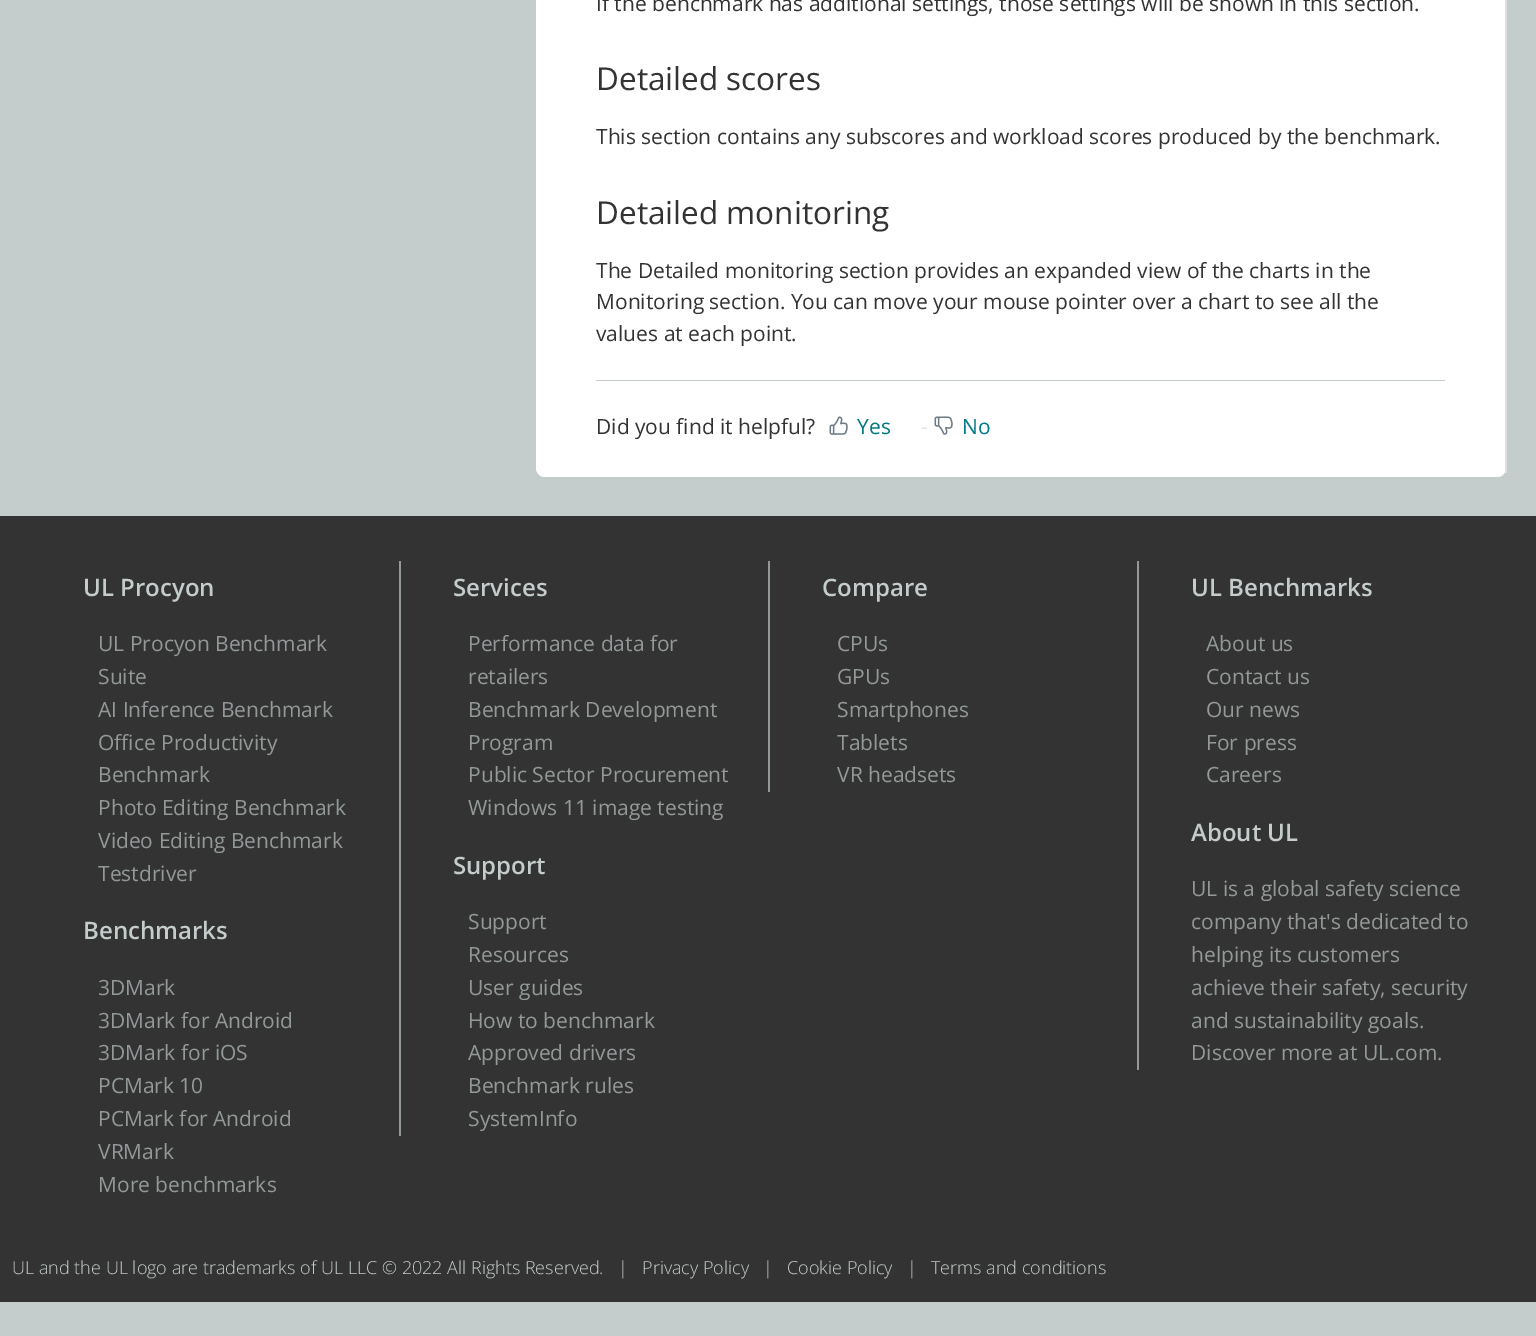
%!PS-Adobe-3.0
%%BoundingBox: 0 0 1536 1336
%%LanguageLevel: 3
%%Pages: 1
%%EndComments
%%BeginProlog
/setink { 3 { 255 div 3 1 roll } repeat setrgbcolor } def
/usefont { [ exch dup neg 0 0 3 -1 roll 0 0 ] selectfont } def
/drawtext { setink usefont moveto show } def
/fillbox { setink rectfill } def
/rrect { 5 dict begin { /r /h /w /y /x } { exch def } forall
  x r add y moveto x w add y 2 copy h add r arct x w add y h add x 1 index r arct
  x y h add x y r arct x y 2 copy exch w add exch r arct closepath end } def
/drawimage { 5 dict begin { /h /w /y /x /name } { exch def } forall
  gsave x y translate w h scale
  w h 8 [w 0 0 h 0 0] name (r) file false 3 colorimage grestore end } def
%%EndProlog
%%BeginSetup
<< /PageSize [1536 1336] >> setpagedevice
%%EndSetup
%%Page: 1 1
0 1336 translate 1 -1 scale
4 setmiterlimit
0 0 1536 1336 197 204 204 fillbox
255 255 255 setink
536 -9 970 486 9 rrect fill
1505 0 2 473 218 223 227 fillbox
(If the benchmark has additional settings, those settings will be shown in this section.) 596 11 /OpenSans-Regular 21 51 51 51 drawtext
(Detailed scores) 596 90 /OpenSans-Regular 31.5 51 51 51 drawtext
(This section contains any subscores and workload scores produced by the benchmark.) 596 144 /OpenSans-Regular 21 51 51 51 drawtext
(Detailed monitoring) 596 224 /OpenSans-Regular 31.5 51 51 51 drawtext
(The Detailed monitoring section provides an expanded view of the charts in the) 596 278 /OpenSans-Regular 21 51 51 51 drawtext
(Monitoring section. You can move your mouse pointer over a chart to see all the) 596 309 /OpenSans-Regular 21 51 51 51 drawtext
(values at each point.) 596 341 /OpenSans-Regular 21 51 51 51 drawtext
596 380 849 1 197 204 204 fillbox
(Did you find it helpful?) 596 434 /OpenSans-Regular 21 51 51 51 drawtext
(assets/img1.rgb) 829 416 19 19 drawimage
(Yes) 857 434 /OpenSans-Regular 21 0 121 135 drawtext
(-) 921 434 /OpenSans-Regular 21 229 229 229 drawtext
(assets/img2.rgb) 934 416 19 19 drawimage
(No) 962 434 /OpenSans-Regular 21 0 121 135 drawtext
0 516 1536 786 51 51 51 fillbox
(UL Procyon) 83 596 /OpenSans-SemiBold 24 197 204 204 drawtext
(UL Procyon Benchmark) 98 651 /OpenSans-Regular 21 147 152 152 drawtext
(Suite) 98 684 /OpenSans-Regular 21 147 152 152 drawtext
(AI Inference Benchmark) 98 717 /OpenSans-Regular 21 147 152 152 drawtext
(Office Productivity) 98 750 /OpenSans-Regular 21 147 152 152 drawtext
(Benchmark) 98 782 /OpenSans-Regular 21 147 152 152 drawtext
(Photo Editing Benchmark) 98 815 /OpenSans-Regular 21 147 152 152 drawtext
(Video Editing Benchmark) 98 848 /OpenSans-Regular 21 147 152 152 drawtext
(Testdriver) 98 881 /OpenSans-Regular 21 147 152 152 drawtext
(Benchmarks) 83 939 /OpenSans-SemiBold 24 197 204 204 drawtext
(3DMark) 98 995 /OpenSans-Regular 21 147 152 152 drawtext
(3DMark for Android) 98 1028 /OpenSans-Regular 21 147 152 152 drawtext
(3DMark for iOS) 98 1060 /OpenSans-Regular 21 147 152 152 drawtext
(PCMark 10) 98 1093 /OpenSans-Regular 21 147 152 152 drawtext
(PCMark for Android) 98 1126 /OpenSans-Regular 21 147 152 152 drawtext
(VRMark) 98 1159 /OpenSans-Regular 21 147 152 152 drawtext
(More benchmarks) 98 1192 /OpenSans-Regular 21 147 152 152 drawtext
399 561 2 575 147 152 152 fillbox
(Services) 453 596 /OpenSans-SemiBold 24 197 204 204 drawtext
(Performance data for) 468 651 /OpenSans-Regular 21 147 152 152 drawtext
(retailers) 468 684 /OpenSans-Regular 21 147 152 152 drawtext
(Benchmark Development) 468 717 /OpenSans-Regular 21 147 152 152 drawtext
(Program) 468 750 /OpenSans-Regular 21 147 152 152 drawtext
(Public Sector Procurement) 468 782 /OpenSans-Regular 21 147 152 152 drawtext
(Windows 11 image testing) 468 815 /OpenSans-Regular 21 147 152 152 drawtext
(Support) 453 874 /OpenSans-SemiBold 24 197 204 204 drawtext
(Support) 468 929 /OpenSans-Regular 21 147 152 152 drawtext
(Resources) 468 962 /OpenSans-Regular 21 147 152 152 drawtext
(User guides) 468 995 /OpenSans-Regular 21 147 152 152 drawtext
(How to benchmark) 468 1028 /OpenSans-Regular 21 147 152 152 drawtext
(Approved drivers) 468 1060 /OpenSans-Regular 21 147 152 152 drawtext
(Benchmark rules) 468 1093 /OpenSans-Regular 21 147 152 152 drawtext
(SystemInfo) 468 1126 /OpenSans-Regular 21 147 152 152 drawtext
768 561 2 231 147 152 152 fillbox
(Compare) 822 596 /OpenSans-SemiBold 24 197 204 204 drawtext
(CPUs) 837 651 /OpenSans-Regular 21 147 152 152 drawtext
(GPUs) 837 684 /OpenSans-Regular 21 147 152 152 drawtext
(Smartphones) 837 717 /OpenSans-Regular 21 147 152 152 drawtext
(Tablets) 837 750 /OpenSans-Regular 21 147 152 152 drawtext
(VR headsets) 837 782 /OpenSans-Regular 21 147 152 152 drawtext
1137 561 2 509 147 152 152 fillbox
(UL Benchmarks) 1191 596 /OpenSans-SemiBold 24 197 204 204 drawtext
(About us) 1206 651 /OpenSans-Regular 21 147 152 152 drawtext
(Contact us) 1206 684 /OpenSans-Regular 21 147 152 152 drawtext
(Our news) 1206 717 /OpenSans-Regular 21 147 152 152 drawtext
(For press) 1206 750 /OpenSans-Regular 21 147 152 152 drawtext
(Careers) 1206 782 /OpenSans-Regular 21 147 152 152 drawtext
(About UL) 1191 841 /OpenSans-SemiBold 24 197 204 204 drawtext
(UL is a global safety science) 1191 896 /OpenSans-Regular 21 147 152 152 drawtext
(company that's dedicated to) 1191 929 /OpenSans-Regular 21 147 152 152 drawtext
(helping its customers) 1191 962 /OpenSans-Regular 21 147 152 152 drawtext
(achieve their safety, security) 1191 995 /OpenSans-Regular 21 147 152 152 drawtext
(and sustainability goals.) 1191 1028 /OpenSans-Regular 21 147 152 152 drawtext
(Discover more at UL.com.) 1191 1060 /OpenSans-Regular 21 147 152 152 drawtext
(UL and the UL logo are trademarks of UL LLC © 2022 All Rights Reserved.) 12 1274 /OpenSans-Light 18 197 204 204 drawtext
(|) 618 1274 /OpenSans-Light 18 197 204 204 drawtext
(Privacy Policy) 642 1274 /OpenSans-Light 18 197 204 204 drawtext
(|) 763 1274 /OpenSans-Light 18 197 204 204 drawtext
(Cookie Policy) 787 1274 /OpenSans-Light 18 197 204 204 drawtext
(|) 907 1274 /OpenSans-Light 18 197 204 204 drawtext
(Terms and conditions) 931 1274 /OpenSans-Light 18 197 204 204 drawtext
showpage
%%EOF
